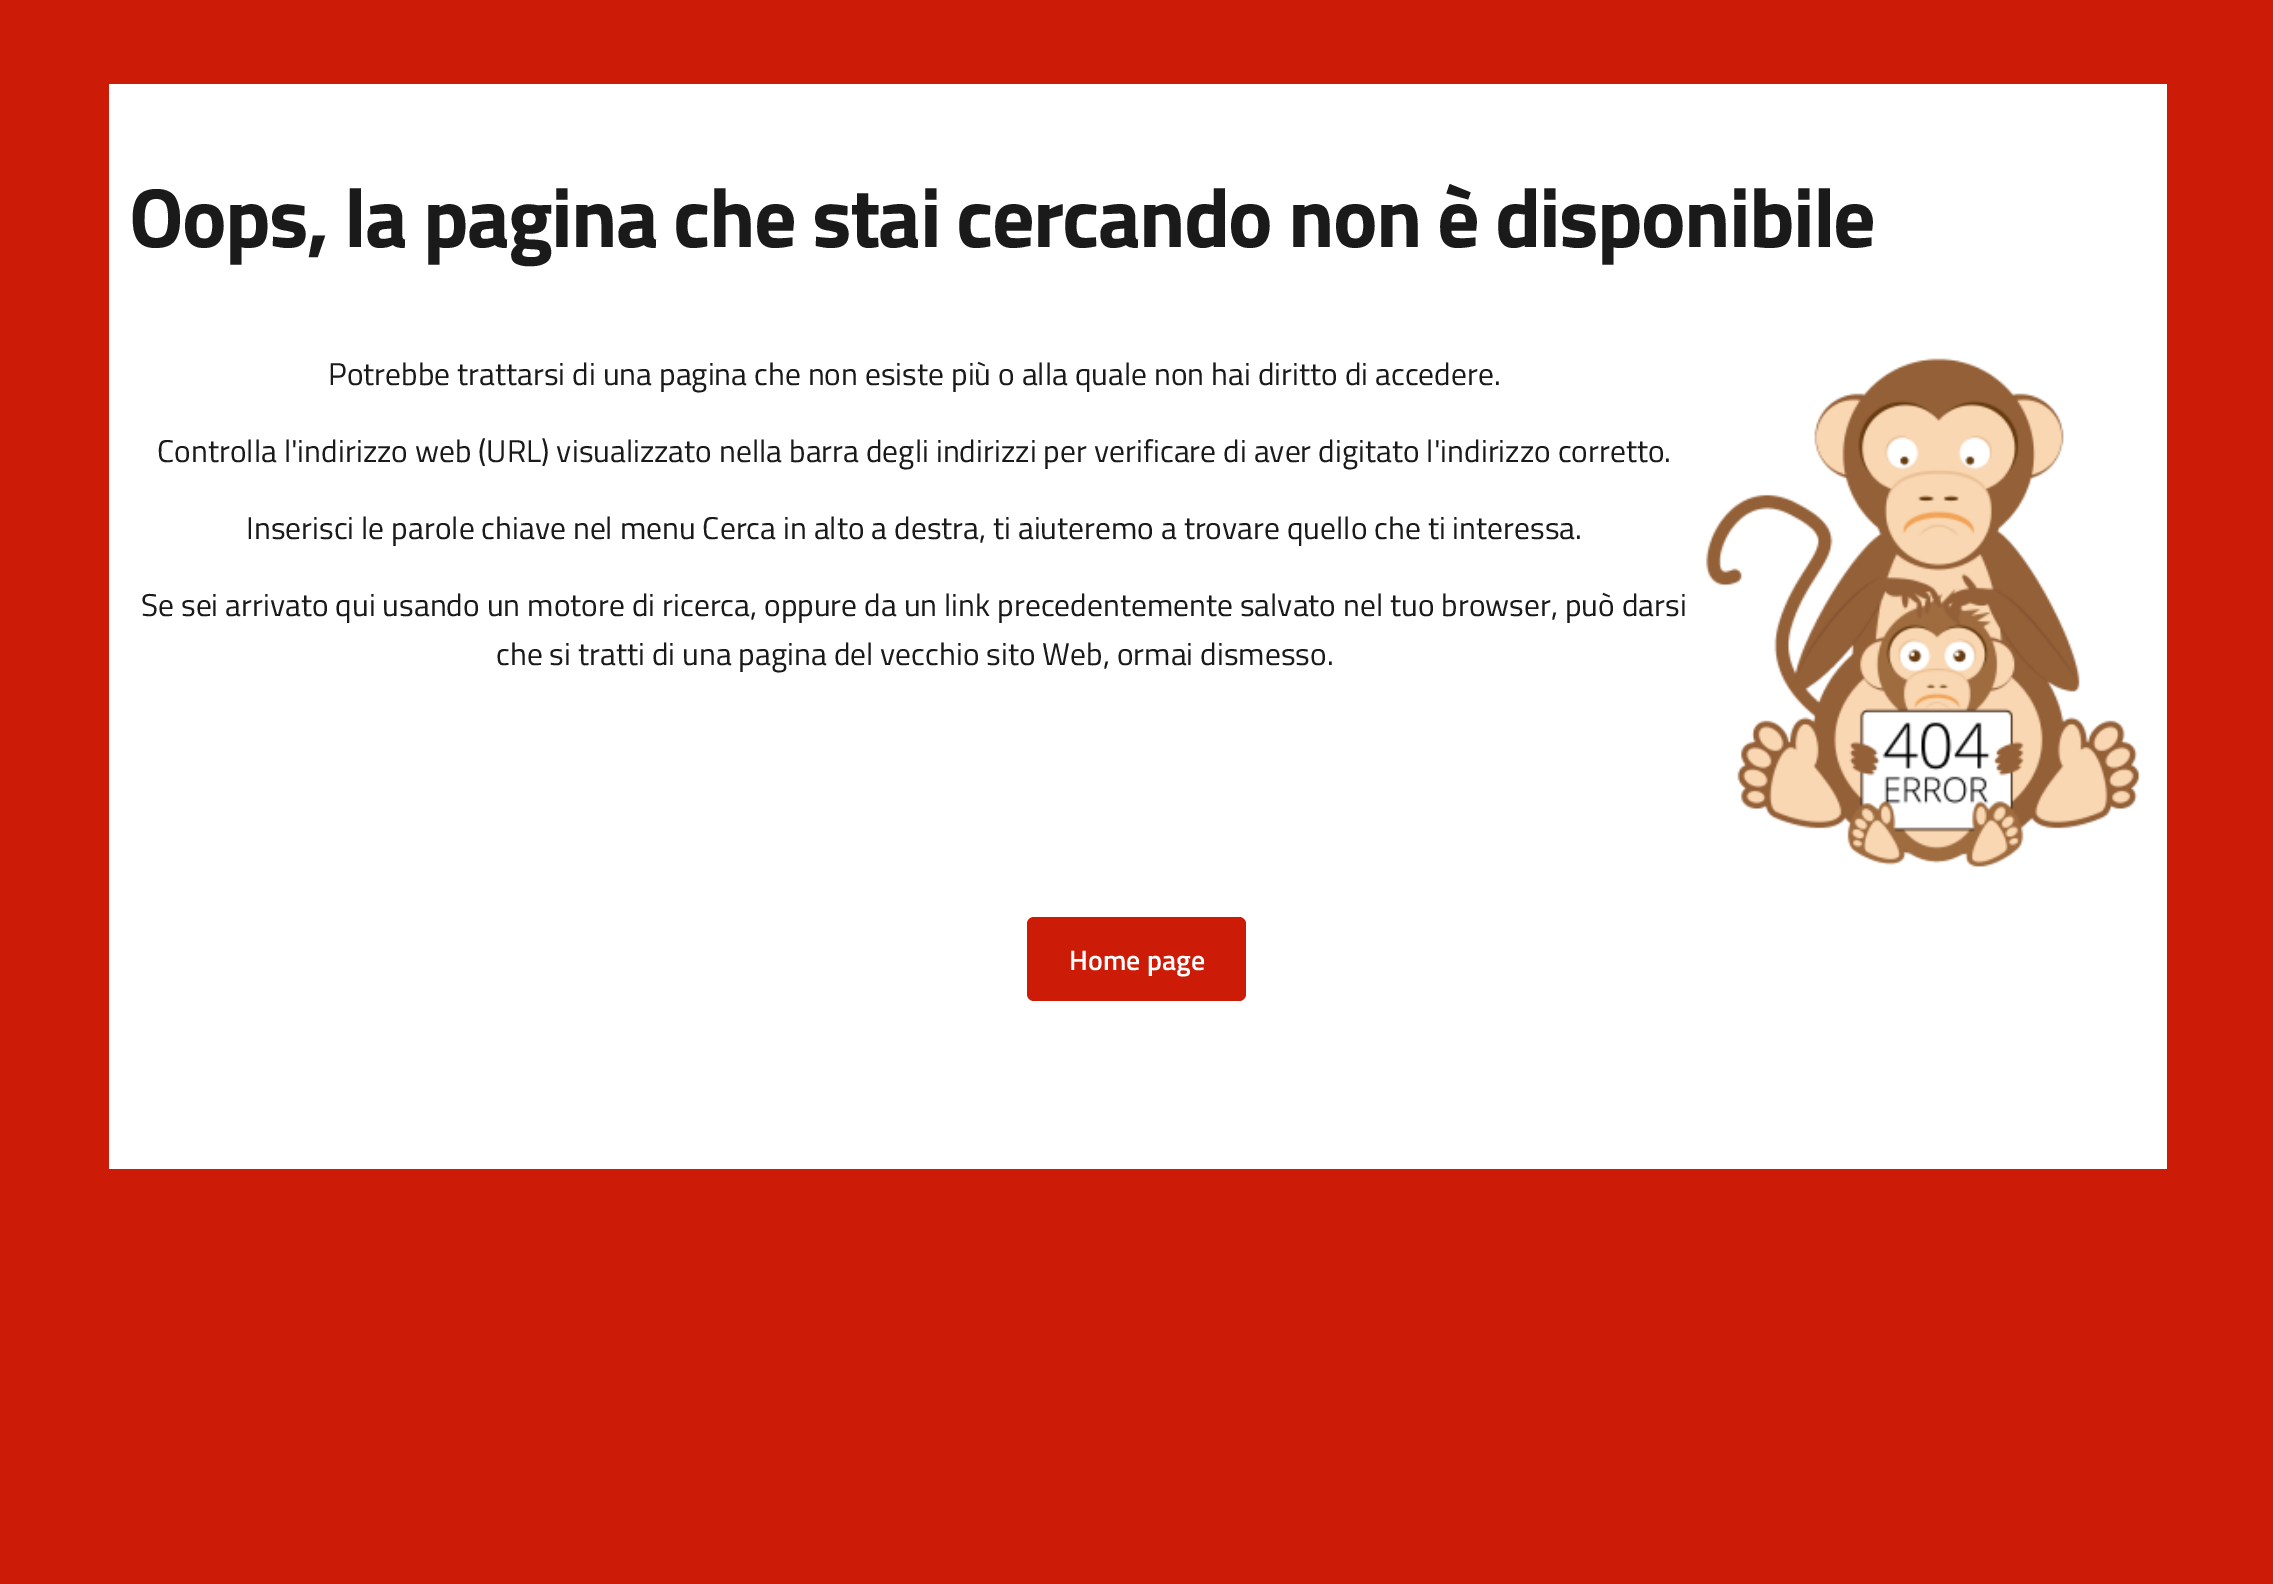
%!PS-Adobe-3.0
%%BoundingBox: 0 0 2273 1584
%%LanguageLevel: 3
%%Pages: 1
%%EndComments
%%BeginProlog
/setink { 3 { 255 div 3 1 roll } repeat setrgbcolor } def
/usefont { [ exch dup neg 0 0 3 -1 roll 0 0 ] selectfont } def
/drawtext { setink usefont moveto show } def
/fillbox { setink rectfill } def
/rrect { 5 dict begin { /r /h /w /y /x } { exch def } forall
  x r add y moveto x w add y 2 copy h add r arct x w add y h add x 1 index r arct
  x y h add x y r arct x y 2 copy exch w add exch r arct closepath end } def
/drawimage { 5 dict begin { /h /w /y /x /name } { exch def } forall
  gsave x y translate w h scale
  w h 8 [w 0 0 h 0 0] name (r) file false 3 colorimage grestore end } def
%%EndProlog
%%BeginSetup
<< /PageSize [2273 1584] >> setpagedevice
%%EndSetup
%%Page: 1 1
0 1584 translate 1 -1 scale
4 setmiterlimit
0 0 2273 1584 204 28 8 fillbox
109 84 2058 1085 255 255 255 fillbox
/TitilliumWeb-Bold 84 usefont
26 26 26 setink
129 247 moveto -1.75 0 (Oops, la pagina che stai cercando non è disponibile) ashow
(Potrebbe trattarsi di una pagina che non esiste più o alla quale non hai diritto di accedere.) 328 385 /TitilliumWeb-Regular 31.5 26 26 26 drawtext
(assets/img1.rgb) 1705 358 436 509 drawimage
(Controlla l'indirizzo web \(URL\) visualizzato nella barra degli indirizzi per verificare di aver digitato l'indirizzo corretto.) 157 462 /TitilliumWeb-Regular 31.5 26 26 26 drawtext
(Inserisci le parole chiave nel menu Cerca in alto a destra, ti aiuteremo a trovare quello che ti interessa.) 246 539 /TitilliumWeb-Regular 31.5 26 26 26 drawtext
(Se sei arrivato qui usando un motore di ricerca, oppure da un link precedentemente salvato nel tuo browser, può darsi) 141 616 /TitilliumWeb-Regular 31.5 26 26 26 drawtext
(che si tratti di una pagina del vecchio sito Web, ormai dismesso.) 496 665 /TitilliumWeb-Regular 31.5 26 26 26 drawtext
204 28 8 setink
1027 917 219 84 7 rrect fill
(Home page) 1069 970 /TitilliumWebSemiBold-SemiBold 28 255 255 255 drawtext
showpage
%%EOF
